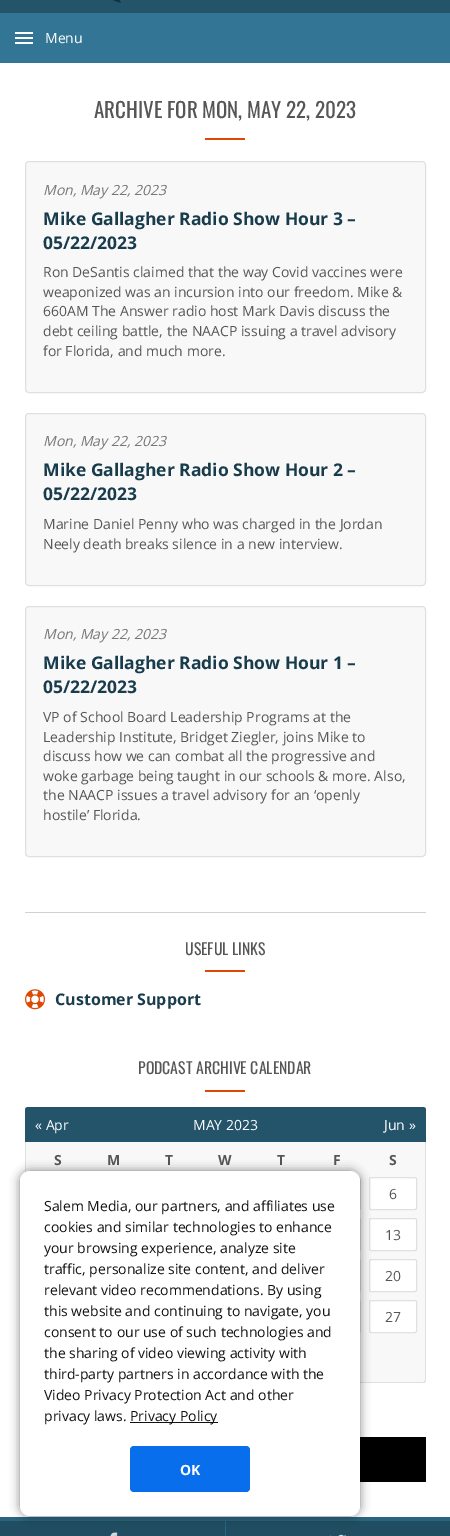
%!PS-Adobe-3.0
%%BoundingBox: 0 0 450 1536
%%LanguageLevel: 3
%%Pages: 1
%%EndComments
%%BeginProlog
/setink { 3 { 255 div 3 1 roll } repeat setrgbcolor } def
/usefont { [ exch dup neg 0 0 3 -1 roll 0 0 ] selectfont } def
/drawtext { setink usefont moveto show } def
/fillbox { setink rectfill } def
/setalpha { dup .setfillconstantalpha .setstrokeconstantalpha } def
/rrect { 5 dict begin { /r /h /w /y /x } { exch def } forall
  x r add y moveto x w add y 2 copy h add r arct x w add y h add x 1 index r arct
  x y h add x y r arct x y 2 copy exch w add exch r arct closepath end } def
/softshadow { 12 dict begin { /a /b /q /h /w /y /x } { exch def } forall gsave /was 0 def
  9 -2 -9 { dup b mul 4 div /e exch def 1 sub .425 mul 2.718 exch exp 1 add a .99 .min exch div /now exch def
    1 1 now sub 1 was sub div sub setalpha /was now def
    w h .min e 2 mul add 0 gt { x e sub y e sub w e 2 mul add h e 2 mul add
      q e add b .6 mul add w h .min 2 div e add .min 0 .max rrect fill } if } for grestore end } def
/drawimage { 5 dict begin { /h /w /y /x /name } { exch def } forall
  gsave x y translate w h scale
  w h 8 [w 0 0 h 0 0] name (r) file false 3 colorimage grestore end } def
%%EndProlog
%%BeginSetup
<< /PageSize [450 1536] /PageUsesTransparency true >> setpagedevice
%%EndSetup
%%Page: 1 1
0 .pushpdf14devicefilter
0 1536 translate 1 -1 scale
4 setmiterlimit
0 0 450 1536 255 255 255 fillbox
0 0 450 13 35 84 106 fillbox
(assets/img1.rgb) 113 0 8 3 drawimage
0 13 450 50 50 117 148 fillbox
15 37 18 2 255 255 255 fillbox
15 32 18 2 255 255 255 fillbox
15 42 18 2 255 255 255 fillbox
(Menu) 45 43 /OpenSans-Regular 14 255 255 255 drawtext
(ARCHIVE FOR MON, MAY 22, 2023) 94 118 /Oswald-Regular 21 86 86 86 drawtext
205 138 40 2 222 72 3 fillbox
248 248 248 setink
25.5 161.5 400 231 3.5 rrect gsave fill grestore
224 224 224 setink
stroke
(Mon, May 22, 2023) 43 195 /OpenSans-Italic 14 119 119 119 drawtext
(Mike Gallagher Radio Show Hour 3 –) 43 225 /OpenSans-Bold 17.5 25 60 76 drawtext
(05/22/2023) 43 249 /OpenSans-Bold 17.5 25 60 76 drawtext
(Ron DeSantis claimed that the way Covid vaccines were) 43 277 /OpenSans-Regular 14 86 86 86 drawtext
(weaponized was an incursion into our freedom. Mike &) 43 297 /OpenSans-Regular 14 86 86 86 drawtext
(660AM The Answer radio host Mark Davis discuss the) 43 316 /OpenSans-Regular 14 86 86 86 drawtext
(debt ceiling battle, the NAACP issuing a travel advisory) 43 336 /OpenSans-Regular 14 86 86 86 drawtext
(for Florida, and much more.) 43 356 /OpenSans-Regular 14 86 86 86 drawtext
248 248 248 setink
25.5 413.5 400 172 3.5 rrect gsave fill grestore
224 224 224 setink
stroke
(Mon, May 22, 2023) 43 446 /OpenSans-Italic 14 119 119 119 drawtext
(Mike Gallagher Radio Show Hour 2 –) 43 476 /OpenSans-Bold 17.5 25 60 76 drawtext
(05/22/2023) 43 500 /OpenSans-Bold 17.5 25 60 76 drawtext
(Marine Daniel Penny who was charged in the Jordan) 43 529 /OpenSans-Regular 14 86 86 86 drawtext
(Neely death breaks silence in a new interview.) 43 549 /OpenSans-Regular 14 86 86 86 drawtext
248 248 248 setink
25.5 606.5 400 250 3.5 rrect gsave fill grestore
224 224 224 setink
stroke
(Mon, May 22, 2023) 43 639 /OpenSans-Italic 14 119 119 119 drawtext
(Mike Gallagher Radio Show Hour 1 –) 43 669 /OpenSans-Bold 17.5 25 60 76 drawtext
(05/22/2023) 43 693 /OpenSans-Bold 17.5 25 60 76 drawtext
(VP of School Board Leadership Programs at the) 43 722 /OpenSans-Regular 14 86 86 86 drawtext
(Leadership Institute, Bridget Ziegler, joins Mike to) 43 742 /OpenSans-Regular 14 86 86 86 drawtext
(discuss how we can combat all the progressive and) 43 761 /OpenSans-Regular 14 86 86 86 drawtext
(woke garbage being taught in our schools & more. Also,) 43 781 /OpenSans-Regular 14 86 86 86 drawtext
(the NAACP issues a travel advisory for an ‘openly) 43 800 /OpenSans-Regular 14 86 86 86 drawtext
(hostile’ Florida.) 43 820 /OpenSans-Regular 14 86 86 86 drawtext
25 912 401 1 210 210 210 fillbox
(USEFUL LINKS) 185 955 /Oswald-Regular 15.75 86 86 86 drawtext
205 970 40 2 222 72 3 fillbox
(assets/img2.rgb) 25 989 20 21 drawimage
(Customer Support) 55 1005 /OpenSans-Bold 16 25 60 76 drawtext
(PODCAST ARCHIVE CALENDAR) 138 1074 /Oswald-Regular 15.75 86 86 86 drawtext
205 1090 40 2 222 72 3 fillbox
248 248 248 setink
25 1107 moveto 426 1107 lineto 426 1380 lineto 426 1381.5 424.5 1383 423 1383 curveto 28 1383 lineto 26.5 1383 25 1381.5 25 1380 curveto closepath fill
224 224 224 setink
25 1107 moveto 426 1107 lineto 426 1380 lineto 426 1382 425 1383 423 1383 curveto 28 1383 lineto 26 1383 25 1382 25 1380 curveto closepath 26 1107 moveto 425 1107 lineto 425 1380 lineto 425 1381 424 1382 423 1382 curveto 28 1382 lineto 27 1382 26 1381 26 1380 curveto closepath eofill
35 84 106 setink
28 1107 moveto 423 1107 lineto 424.5 1107 426 1108.5 426 1110 curveto 426 1142 lineto 25 1142 lineto 25 1110 lineto 25 1108.5 26.5 1107 28 1107 curveto closepath fill
(« Apr) 35 1130 /OpenSans-Regular 14 255 255 255 drawtext
(Jun ») 384 1130 /OpenSans-Regular 14 255 255 255 drawtext
(MAY 2023) 193 1130 /OpenSans-Regular 14 255 255 255 drawtext
(S) 54 1165 /OpenSans-Bold 14 86 86 86 drawtext
(M) 107 1165 /OpenSans-Bold 14 86 86 86 drawtext
(T) 165 1165 /OpenSans-Bold 14 86 86 86 drawtext
(W) 218 1165 /OpenSans-Bold 14 86 86 86 drawtext
(T) 277 1165 /OpenSans-Bold 14 86 86 86 drawtext
(F) 333 1165 /OpenSans-Bold 14 86 86 86 drawtext
(S) 389 1165 /OpenSans-Bold 14 86 86 86 drawtext
224 224 224 setink
313.5 1177.5 47 32 1.5 rrect stroke
255 255 255 setink
369.5 1177.5 47 32 1.5 rrect gsave fill grestore
224 224 224 setink
stroke
(6) 389 1199 /OpenSans-Regular 14 86 86 86 drawtext
224 224 224 setink
313.5 1218.5 47 32 1.5 rrect stroke
255 255 255 setink
369.5 1218.5 47 32 1.5 rrect gsave fill grestore
224 224 224 setink
stroke
(13) 385 1240 /OpenSans-Regular 14 86 86 86 drawtext
224 224 224 setink
313.5 1259.5 47 32 1.5 rrect stroke
255 255 255 setink
369.5 1259.5 47 32 1.5 rrect gsave fill grestore
224 224 224 setink
stroke
(20) 385 1281 /OpenSans-Regular 14 86 86 86 drawtext
224 224 224 setink
313.5 1300.5 47 32 1.5 rrect stroke
255 255 255 setink
369.5 1300.5 47 32 1.5 rrect gsave fill grestore
224 224 224 setink
stroke
(27) 385 1322 /OpenSans-Regular 14 86 86 86 drawtext
360 1437 66 45 0 0 0 fillbox
0 1521 450 15 32 77 97 fillbox
0 1517 450 4 42 101 127 fillbox
225 1521 1 15 42 101 127 fillbox
0 0 0 setink
20 1171 340 345 10 5 0.5 softshadow
255 255 255 setink
20 1171 340 345 10 rrect fill
(Salem Media, our partners, and affiliates use) 44 1211 /OpenSans-Regular 14 17 17 17 drawtext
(cookies and similar technologies to enhance) 44 1232 /OpenSans-Regular 14 17 17 17 drawtext
(your browsing experience, analyze site) 44 1253 /OpenSans-Regular 14 17 17 17 drawtext
(traffic, personalize site content, and deliver) 44 1274 /OpenSans-Regular 14 17 17 17 drawtext
(relevant video recommendations. By using) 44 1295 /OpenSans-Regular 14 17 17 17 drawtext
(this website and continuing to navigate, you) 44 1316 /OpenSans-Regular 14 17 17 17 drawtext
(consent to our use of such technologies and) 44 1337 /OpenSans-Regular 14 17 17 17 drawtext
(the sharing of video viewing activity with) 44 1358 /OpenSans-Regular 14 17 17 17 drawtext
(third-party partners in accordance with the) 44 1379 /OpenSans-Regular 14 17 17 17 drawtext
(Video Privacy Protection Act and other) 44 1400 /OpenSans-Regular 14 17 17 17 drawtext
(privacy laws.) 44 1421 /OpenSans-Regular 14 17 17 17 drawtext
130 1422 88 1 17 17 17 fillbox
(Privacy Policy) 130 1421 /OpenSans-Regular 14 17 17 17 drawtext
8 110 236 setink
130 1446 120 46 4 rrect fill
(OK) 180 1475 /OpenSans-Bold 14 255 255 255 drawtext
(assets/img3.rgb) 110 1532 8 4 drawimage
(assets/img4.rgb) 330 1534 16 2 drawimage
.poppdf14devicefilter showpage
%%EOF
